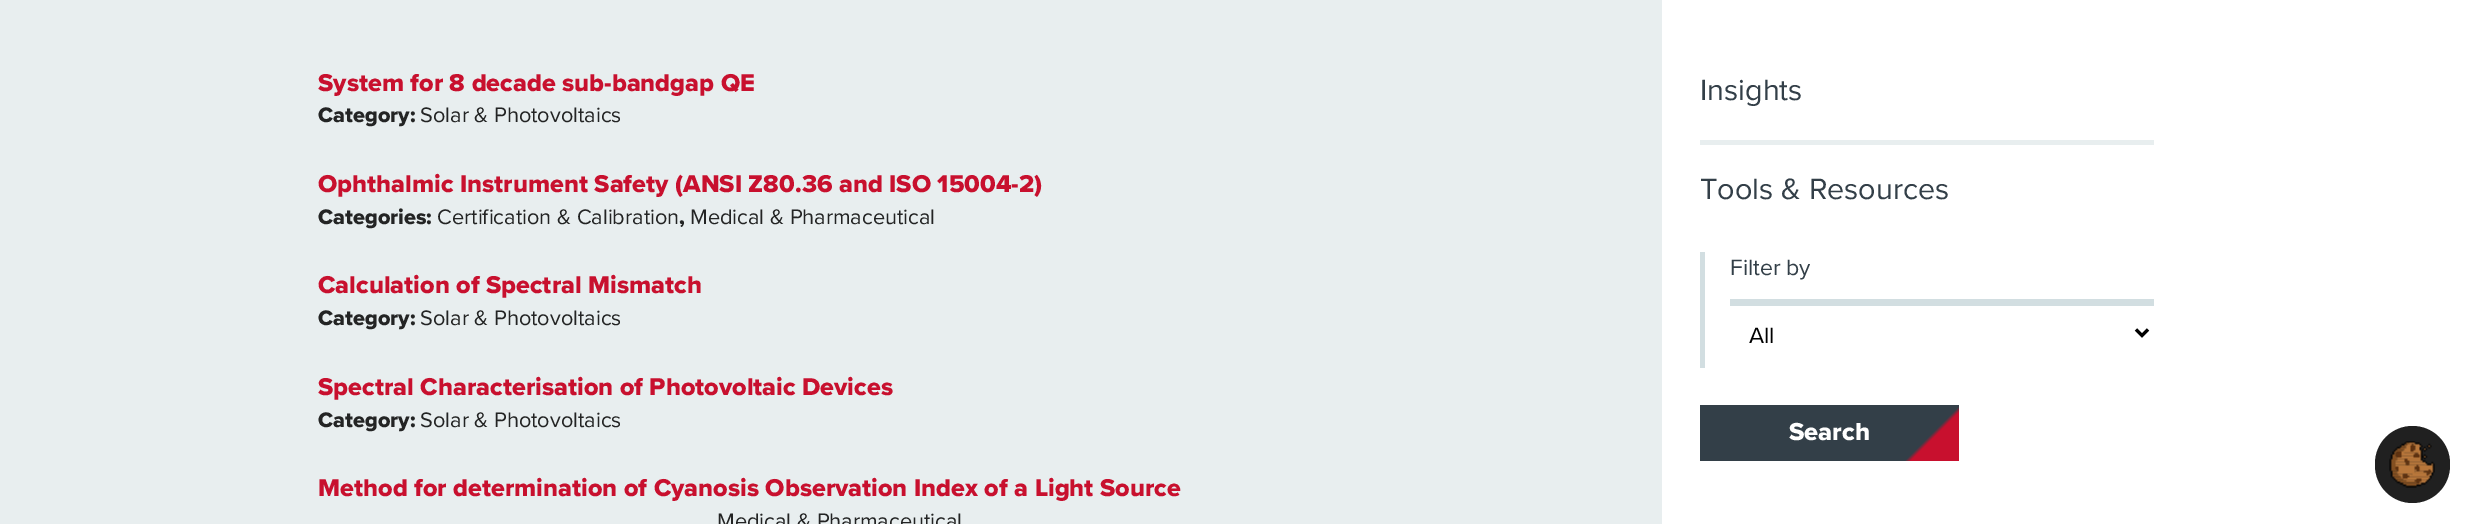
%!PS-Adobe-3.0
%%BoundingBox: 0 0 2472 524
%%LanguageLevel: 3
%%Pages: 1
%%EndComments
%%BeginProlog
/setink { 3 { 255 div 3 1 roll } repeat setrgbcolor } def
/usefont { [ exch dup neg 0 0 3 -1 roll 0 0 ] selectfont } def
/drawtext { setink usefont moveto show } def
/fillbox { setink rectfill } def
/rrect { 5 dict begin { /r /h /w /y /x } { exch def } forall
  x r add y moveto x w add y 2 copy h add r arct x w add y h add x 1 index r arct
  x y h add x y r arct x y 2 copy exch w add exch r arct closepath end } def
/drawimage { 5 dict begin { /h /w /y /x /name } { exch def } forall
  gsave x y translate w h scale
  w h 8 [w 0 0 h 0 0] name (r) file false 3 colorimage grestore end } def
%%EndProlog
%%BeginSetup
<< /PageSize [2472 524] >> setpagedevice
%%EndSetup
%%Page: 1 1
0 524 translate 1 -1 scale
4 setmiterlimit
0 0 2472 524 232 238 239 fillbox
(System for 8 decade sub-bandgap QE) 318 91 /ProximaNova-ExtraBold 25.25 200 16 46 drawtext
(Category:) 318 122 /ProximaNova-ExtraBold 21.75 35 36 36 drawtext
(Solar & Photovoltaics) 420 122 /Bentham-Regular 21.75 35 36 36 drawtext
(Ophthalmic Instrument Safety \(ANSI Z80.36 and ISO 15004-2\)) 318 192 /ProximaNova-ExtraBold 25.25 200 16 46 drawtext
(Categories:) 318 224 /ProximaNova-ExtraBold 21.75 35 36 36 drawtext
(Certification & Calibration) 437 224 /Bentham-Regular 21.75 35 36 36 drawtext
(,) 679 224 /ProximaNova-ExtraBold 21.75 35 36 36 drawtext
(Medical & Pharmaceutical) 690 224 /Bentham-Regular 21.75 35 36 36 drawtext
(Calculation of Spectral Mismatch) 318 293 /ProximaNova-ExtraBold 25.25 200 16 46 drawtext
(Category:) 318 325 /ProximaNova-ExtraBold 21.75 35 36 36 drawtext
(Solar & Photovoltaics) 420 325 /Bentham-Regular 21.75 35 36 36 drawtext
(Spectral Characterisation of Photovoltaic Devices) 318 395 /ProximaNova-ExtraBold 25.25 200 16 46 drawtext
(Category:) 318 427 /ProximaNova-ExtraBold 21.75 35 36 36 drawtext
(Solar & Photovoltaics) 420 427 /Bentham-Regular 21.75 35 36 36 drawtext
(Method for determination of Cyanosis Observation Index of a Light Source) 318 496 /ProximaNova-ExtraBold 25.25 200 16 46 drawtext
(Medical & Pharmaceutical) 717 528 /Bentham-Regular 21.75 35 36 36 drawtext
1662 0 810 524 255 255 255 fillbox
(Insights) 1700 100 /Bentham-Regular 30.5 51 63 72 drawtext
1700 140 454 5 232 238 239 fillbox
(Tools & Resources) 1700 199 /Bentham-Regular 30.5 51 63 72 drawtext
1700 252 5 116 210 222 225 fillbox
(Filter by) 1730 275 /Bentham-Regular 23 51 63 72 drawtext
1730 299 424 7 210 222 225 fillbox
0 0 0 setink
3 setlinewidth
2136 329.5 moveto 2142 335.5 lineto 2148 329.5 lineto stroke
(All) 1749 343 /Bentham-Regular 23 0 0 0 drawtext
gsave 1700 405 moveto 1959 405 lineto 1959 461 lineto 1700 461 lineto closepath clip newpath
<< /ShadingType 2 /ColorSpace /DeviceRGB /Coords [1789 289 2077 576] /Extend [true true] /Function << /FunctionType 3 /Domain [0 1] /Functions [<< /FunctionType 2 /Domain [0 1] /C0 [0.2 0.247 0.282] /C1 [0.2 0.247 0.282] /N 1 >> << /FunctionType 2 /Domain [0 1] /C0 [0.2 0.247 0.282] /C1 [0.784 0.063 0.18] /N 1 >> << /FunctionType 2 /Domain [0 1] /C0 [0.784 0.063 0.18] /C1 [0.784 0.063 0.18] /N 1 >>] /Bounds [0.5 0.51] /Encode [0 1 0 1 0 1] >> >> shfill grestore
(Search) 1789 440 /ProximaNova-ExtraBold 25.5 255 255 255 drawtext
32 32 32 setink
2375 426 75 77 37.5 rrect fill
(assets/img1.rgb) 2389 441 46 47 drawimage
showpage
%%EOF
